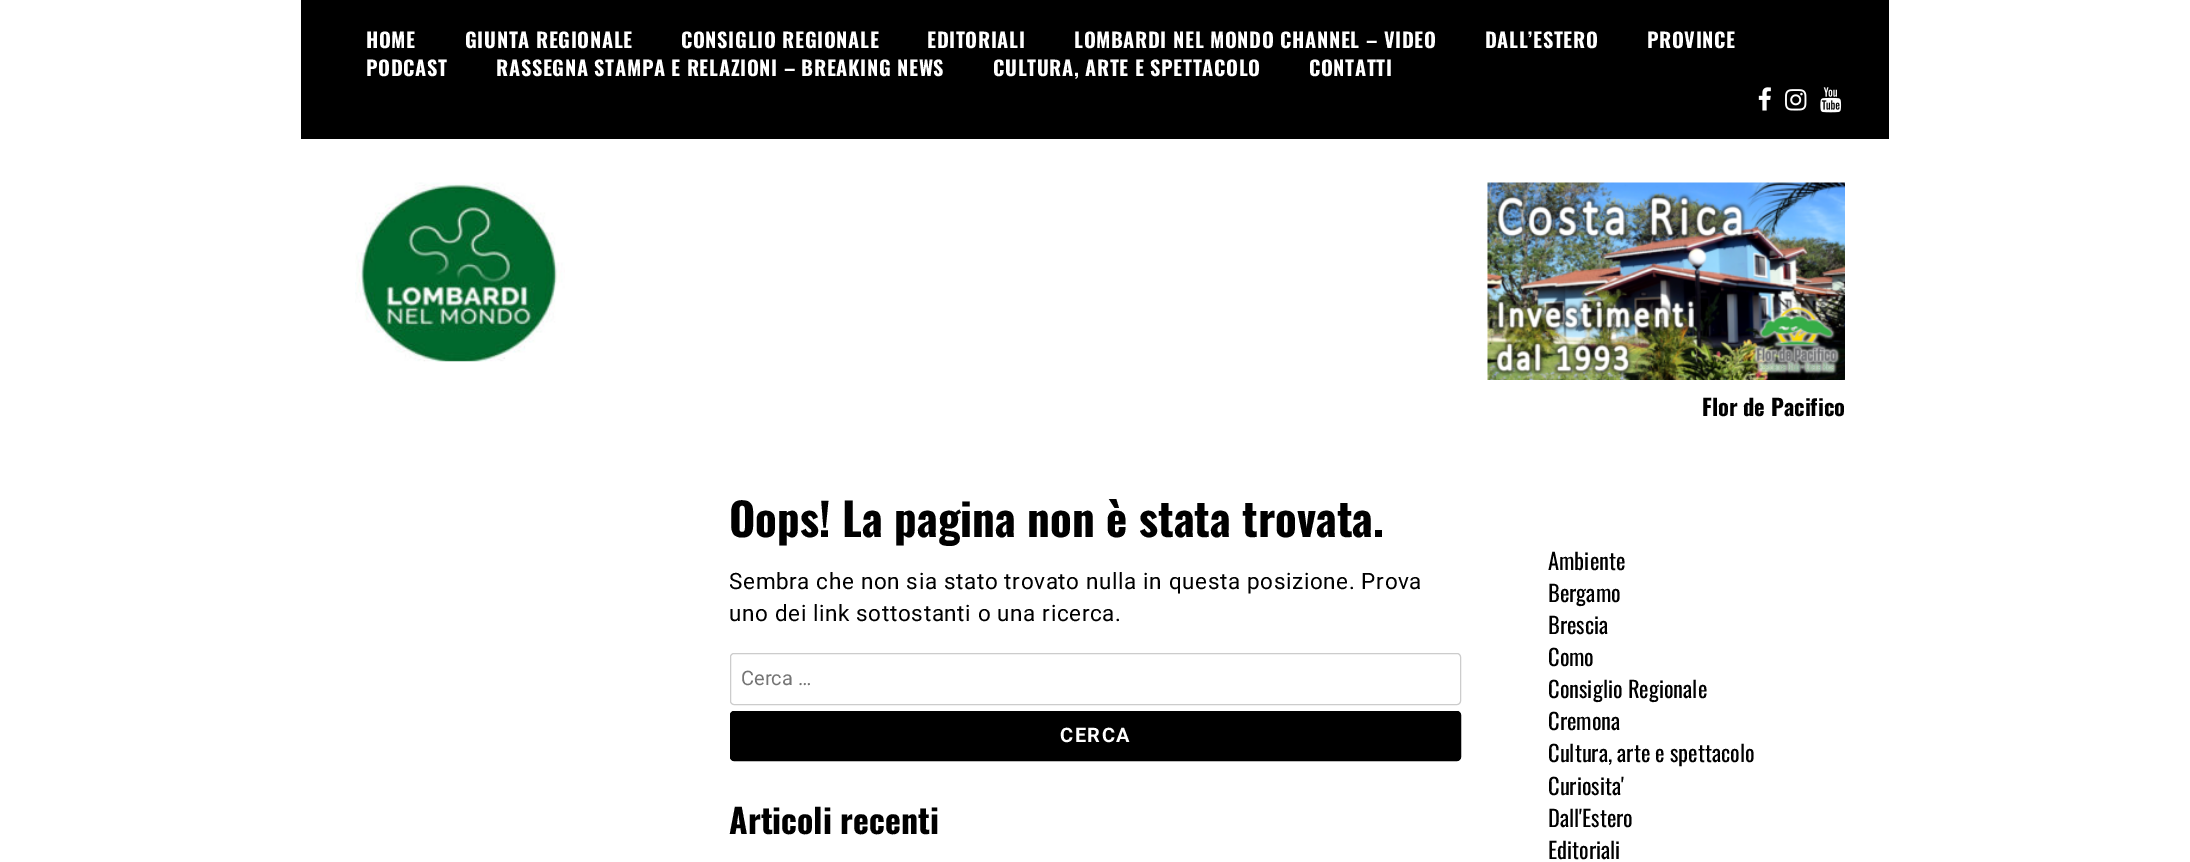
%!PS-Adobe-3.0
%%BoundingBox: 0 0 2190 862
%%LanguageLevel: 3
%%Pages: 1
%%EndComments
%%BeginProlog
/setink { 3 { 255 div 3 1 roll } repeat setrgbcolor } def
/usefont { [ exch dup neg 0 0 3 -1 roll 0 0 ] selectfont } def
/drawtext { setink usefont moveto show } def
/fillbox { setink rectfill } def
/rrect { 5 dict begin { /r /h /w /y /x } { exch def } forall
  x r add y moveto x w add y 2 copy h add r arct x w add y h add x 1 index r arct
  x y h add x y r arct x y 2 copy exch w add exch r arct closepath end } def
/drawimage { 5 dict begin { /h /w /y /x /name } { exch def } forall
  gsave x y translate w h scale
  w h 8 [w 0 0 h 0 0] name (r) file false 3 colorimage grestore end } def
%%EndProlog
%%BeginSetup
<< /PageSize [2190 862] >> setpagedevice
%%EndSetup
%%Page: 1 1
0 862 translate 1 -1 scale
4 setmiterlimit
0 0 2190 862 255 255 255 fillbox
301 0 1588 139 0 0 0 fillbox
/Oswald-Bold 20.25 usefont
255 255 255 setink
366 48 moveto 0.62 0 (HOME) ashow
465 48 moveto 0.62 0 (GIUNTA REGIONALE) ashow
681 48 moveto 0.62 0 (CONSIGLIO REGIONALE) ashow
927 48 moveto 0.62 0 (EDITORIALI) ashow
1074 48 moveto 0.62 0 (LOMBARDI NEL MONDO CHANNEL – VIDEO) ashow
1485 48 moveto 0.62 0 (DALL’ESTERO) ashow
1647 48 moveto 0.62 0 (PROVINCE) ashow
366 76 moveto 0.62 0 (PODCAST) ashow
496 76 moveto 0.62 0 (RASSEGNA STAMPA E RELAZIONI – BREAKING NEWS) ashow
993 76 moveto 0.62 0 (CULTURA, ARTE E SPETTACOLO) ashow
1309 76 moveto 0.62 0 (CONTATTI) ashow
(assets/img1.rgb) 1758 87 13 24 drawimage
(assets/img2.rgb) 1785 89 22 22 drawimage
(assets/img3.rgb) 1820 87 22 26 drawimage
(assets/img4.rgb) 355 182 210 180 drawimage
(assets/img5.rgb) 1487 182 358 198 drawimage
(Flor de Pacifico) 1702 416 /Oswald-Bold 22.5 0 0 0 drawtext
(Oops! La pagina non è stata trovata.) 729 537 /Oswald-Bold 45 0 0 0 drawtext
/Roboto-Regular 22.5 usefont
729 589 moveto 0.62 0 (Sembra che non sia stato trovato nulla in questa posizione. Prova) ashow
729 621 moveto 0.62 0 (uno dei link sottostanti o una ricerca.) ashow
204 204 204 setink
730.5 653.5 730 51 3.5 rrect stroke
(Cerca …) 741 685 /Roboto-Regular 20 117 117 117 drawtext
0 0 0 setink
730.5 711.5 730 49 3.5 rrect gsave fill grestore
stroke
/Roboto-Bold 20 usefont
255 255 255 setink
1060 742 moveto 1.5 0 (CERCA) ashow
(Articoli recenti) 729 834 /Oswald-Bold 33.75 0 0 0 drawtext
(Ambiente) 1548 570 /Oswald-Regular 22.5 0 0 0 drawtext
(Bergamo) 1548 602 /Oswald-Regular 22.5 0 0 0 drawtext
(Brescia) 1548 634 /Oswald-Regular 22.5 0 0 0 drawtext
(Como) 1548 666 /Oswald-Regular 22.5 0 0 0 drawtext
(Consiglio Regionale) 1548 698 /Oswald-Regular 22.5 0 0 0 drawtext
(Cremona) 1548 730 /Oswald-Regular 22.5 0 0 0 drawtext
(Cultura, arte e spettacolo) 1548 762 /Oswald-Regular 22.5 0 0 0 drawtext
(Curiosita') 1548 795 /Oswald-Regular 22.5 0 0 0 drawtext
(Dall'Estero) 1548 827 /Oswald-Regular 22.5 0 0 0 drawtext
(Editoriali) 1548 859 /Oswald-Regular 22.5 0 0 0 drawtext
showpage
%%EOF
